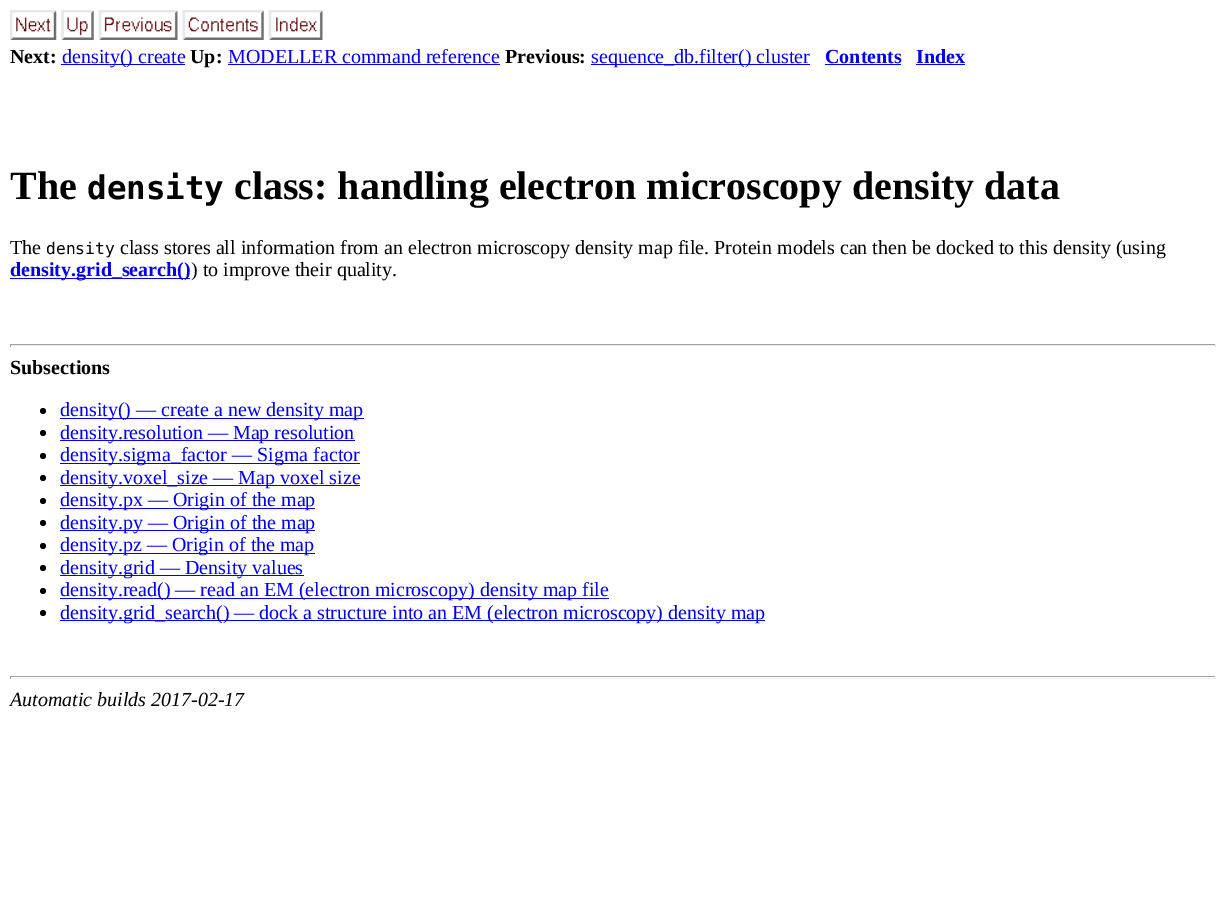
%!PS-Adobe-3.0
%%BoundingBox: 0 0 1226 898
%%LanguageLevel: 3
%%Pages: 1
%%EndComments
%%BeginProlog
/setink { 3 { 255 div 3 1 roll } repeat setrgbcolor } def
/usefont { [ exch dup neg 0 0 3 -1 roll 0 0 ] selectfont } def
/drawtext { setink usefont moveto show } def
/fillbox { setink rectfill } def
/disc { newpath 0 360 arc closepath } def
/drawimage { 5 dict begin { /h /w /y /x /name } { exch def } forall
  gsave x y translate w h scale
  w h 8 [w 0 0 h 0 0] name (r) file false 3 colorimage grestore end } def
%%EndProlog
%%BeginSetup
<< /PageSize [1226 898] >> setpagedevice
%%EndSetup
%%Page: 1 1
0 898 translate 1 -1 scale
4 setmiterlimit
0 0 1226 898 255 255 255 fillbox
(assets/img1.rgb) 10 10 47 30 drawimage
(assets/img2.rgb) 61 10 33 30 drawimage
(assets/img3.rgb) 98 10 80 30 drawimage
(assets/img4.rgb) 182 10 82 30 drawimage
(assets/img5.rgb) 268 10 55 30 drawimage
(Next:) 10 63 /LiberationSerif-Bold 20 0 0 0 drawtext
61 64 124 1 0 0 238 fillbox
(density\(\) create) 62 63 /LiberationSerif-Regular 20 0 0 238 drawtext
(Up:) 190 63 /LiberationSerif-Bold 20 0 0 0 drawtext
(MODELLER command reference) 228 63 /LiberationSerif-Regular 20 0 0 238 drawtext
228 64 272 1 0 0 238 fillbox
(Previous:) 505 63 /LiberationSerif-Bold 20 0 0 0 drawtext
591 64 219 1 0 0 238 fillbox
(sequence_db.filter\(\) cluster) 591 63 /LiberationSerif-Regular 20 0 0 238 drawtext
(Contents) 825 63 /LiberationSerif-Bold 20 0 0 238 drawtext
825 64 76 1 0 0 238 fillbox
(Index) 916 63 /LiberationSerif-Bold 20 0 0 238 drawtext
916 64 49 1 0 0 238 fillbox
(The) 10 199 /LiberationSerif-Bold 40 0 0 0 drawtext
(density) 87 199 /DejaVuSansMono-Bold 32.5 0 0 0 drawtext
(class: handling electron microscopy density data) 234 199 /LiberationSerif-Bold 40 0 0 0 drawtext
(The) 10 254 /LiberationSerif-Regular 20 0 0 0 drawtext
(density) 46 254 /DejaVuSansMono-Regular 16.25 0 0 0 drawtext
(class stores all information from an electron microscopy density map file. Protein models can then be docked to this density \(using) 120 254 /LiberationSerif-Regular 20 0 0 0 drawtext
10 278 180 1 0 0 238 fillbox
(density.grid_search\(\)) 10 276 /LiberationSerif-Bold 20 0 0 238 drawtext
(\) to improve their quality.) 191 276 /LiberationSerif-Regular 20 0 0 0 drawtext
10 344 1206 1 159 159 159 fillbox
1215 344 1 3 238 238 238 fillbox
10 345 1206 1 238 238 238 fillbox
10 344 1 3 159 159 159 fillbox
(Subsections) 10 374 /LiberationSerif-Bold 20 0 0 0 drawtext
43 411 3 disc fill
60 418 304 1 0 0 238 fillbox
(density\(\) — create a new density map) 60 416 /LiberationSerif-Regular 20 0 0 238 drawtext
0 0 0 setink
43 433 3 disc fill
60 440 295 1 0 0 238 fillbox
(density.resolution — Map resolution) 60 439 /LiberationSerif-Regular 20 0 0 238 drawtext
0 0 0 setink
43 456 3 disc fill
60 463 300 1 0 0 238 fillbox
(density.sigma_factor — Sigma factor) 60 461 /LiberationSerif-Regular 20 0 0 238 drawtext
0 0 0 setink
43 478 3 disc fill
60 485 300 1 0 0 238 fillbox
(density.voxel_size — Map voxel size) 60 484 /LiberationSerif-Regular 20 0 0 238 drawtext
0 0 0 setink
43 501 3 disc fill
60 508 255 1 0 0 238 fillbox
(density.px — Origin of the map) 60 506 /LiberationSerif-Regular 20 0 0 238 drawtext
0 0 0 setink
43 523 3 disc fill
60 530 255 1 0 0 238 fillbox
(density.py — Origin of the map) 60 529 /LiberationSerif-Regular 20 0 0 238 drawtext
0 0 0 setink
43 546 3 disc fill
60 553 255 1 0 0 238 fillbox
(density.pz — Origin of the map) 60 551 /LiberationSerif-Regular 20 0 0 238 drawtext
0 0 0 setink
43 568 3 disc fill
60 575 244 1 0 0 238 fillbox
(density.grid — Density values) 60 574 /LiberationSerif-Regular 20 0 0 238 drawtext
0 0 0 setink
43 591 3 disc fill
60 598 549 1 0 0 238 fillbox
(density.read\(\) — read an EM \(electron microscopy\) density map file) 60 596 /LiberationSerif-Regular 20 0 0 238 drawtext
0 0 0 setink
43 613 3 disc fill
60 620 705 1 0 0 238 fillbox
(density.grid_search\(\) — dock a structure into an EM \(electron microscopy\) density map) 60 619 /LiberationSerif-Regular 20 0 0 238 drawtext
10 676 1206 1 159 159 159 fillbox
1215 676 1 3 238 238 238 fillbox
10 678 1206 1 238 238 238 fillbox
10 676 1 3 159 159 159 fillbox
(Automatic builds 2017-02-17) 10 706 /LiberationSerif-Italic 20 0 0 0 drawtext
showpage
%%EOF
